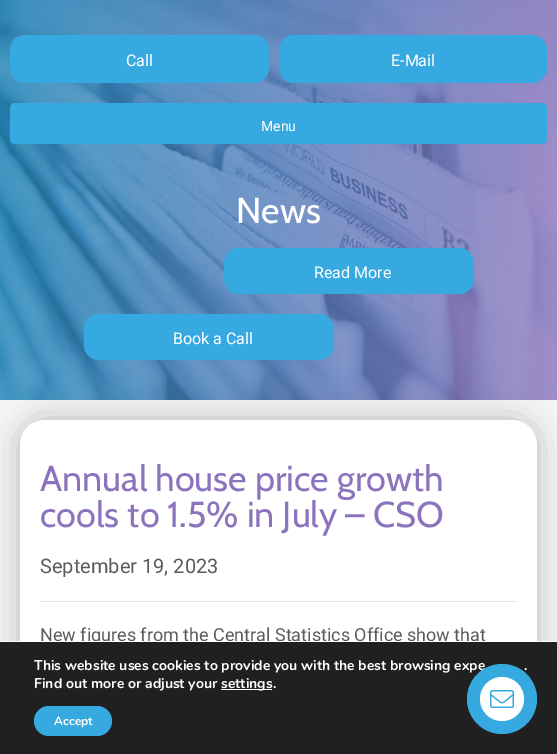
%!PS-Adobe-3.0
%%BoundingBox: 0 0 557 754
%%LanguageLevel: 3
%%Pages: 1
%%EndComments
%%BeginProlog
/setink { 3 { 255 div 3 1 roll } repeat setrgbcolor } def
/usefont { [ exch dup neg 0 0 3 -1 roll 0 0 ] selectfont } def
/drawtext { setink usefont moveto show } def
/fillbox { setink rectfill } def
/setalpha { dup .setfillconstantalpha .setstrokeconstantalpha } def
/disc { newpath 0 360 arc closepath } def
/rrect { 5 dict begin { /r /h /w /y /x } { exch def } forall
  x r add y moveto x w add y 2 copy h add r arct x w add y h add x 1 index r arct
  x y h add x y r arct x y 2 copy exch w add exch r arct closepath end } def
/softshadow { 12 dict begin { /a /b /q /h /w /y /x } { exch def } forall gsave /was 0 def
  9 -2 -9 { dup b mul 4 div /e exch def 1 sub .425 mul 2.718 exch exp 1 add a .99 .min exch div /now exch def
    1 1 now sub 1 was sub div sub setalpha /was now def
    w h .min e 2 mul add 0 gt { x e sub y e sub w e 2 mul add h e 2 mul add
      q e add b .6 mul add w h .min 2 div e add .min 0 .max rrect fill } if } for grestore end } def
/drawimage { 5 dict begin { /h /w /y /x /name } { exch def } forall
  gsave x y translate w h scale
  w h 8 [w 0 0 h 0 0] name (r) file false 3 colorimage grestore end } def
%%EndProlog
%%BeginSetup
<< /PageSize [557 754] /PageUsesTransparency true >> setpagedevice
%%EndSetup
%%Page: 1 1
0 .pushpdf14devicefilter
0 754 translate 1 -1 scale
4 setmiterlimit
0 0 557 754 255 255 255 fillbox
(assets/img1.rgb) 0 0 557 400 drawimage
54 169 225 setink
10 35 259 48 15 rrect fill
(Call) 126 66 /Roboto-Regular 16 255 255 255 drawtext
54 169 225 setink
279 35 268 48 15 rrect fill
(E-Mail) 391 66 /Roboto-Regular 16 255 255 255 drawtext
54 169 225 setink
10 103 537 41 5 rrect fill
(Menu) 261 131 /Roboto-Regular 14 255 255 255 drawtext
(News) 236 223 /Cabin-Regular 36 255 255 255 drawtext
54 169 225 setink
224 248 250 46 15 rrect fill
(Read More) 314 278 /Roboto-Regular 16 255 255 255 drawtext
54 169 225 setink
84 314 250 46 15 rrect fill
(Book a Call) 173 344 /Roboto-Regular 16 255 255 255 drawtext
0 400 557 241 245 245 245 fillbox
0 0 0 setink
20 420 517 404 25 15 0.25 softshadow
255 255 255 setink
20 420 517 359 25 rrect fill
(Annual house price growth) 40 491 /Cabin-Regular 36 139 116 189 drawtext
(cools to 1.5% in July – CSO) 40 527 /Cabin-Regular 36 139 116 189 drawtext
(September 19, 2023) 40 573 /Roboto-Regular 20 89 92 93 drawtext
40 601 477 1 230 230 230 fillbox
(New figures from the Central Statistics Office show that) 40 641 /Roboto-Regular 18 89 92 93 drawtext
0 642 557 112 32 32 32 fillbox
0 641 557 1 255 255 255 fillbox
(This website uses cookies to provide you with the best browsing expe) 34 670 /Nunito-Bold 14 255 255 255 drawtext
(.) 524 670 /Nunito-Bold 14 255 255 255 drawtext
(Find out more or adjust your) 34 688 /Nunito-Bold 14 255 255 255 drawtext
221 689 51 1 255 255 255 fillbox
(settings.) 221 688 /Nunito-Bold 14 255 255 255 drawtext
54 169 225 setink
34 706 78 30 15 rrect fill
(Accept) 54 725 /Nunito-Bold 12 255 255 255 drawtext
54 169 225 setink
502 699 35 disc fill
255 255 255 setink
502 699 22 disc fill
(assets/img2.rgb) 490 690 24 18 drawimage
.poppdf14devicefilter showpage
%%EOF
